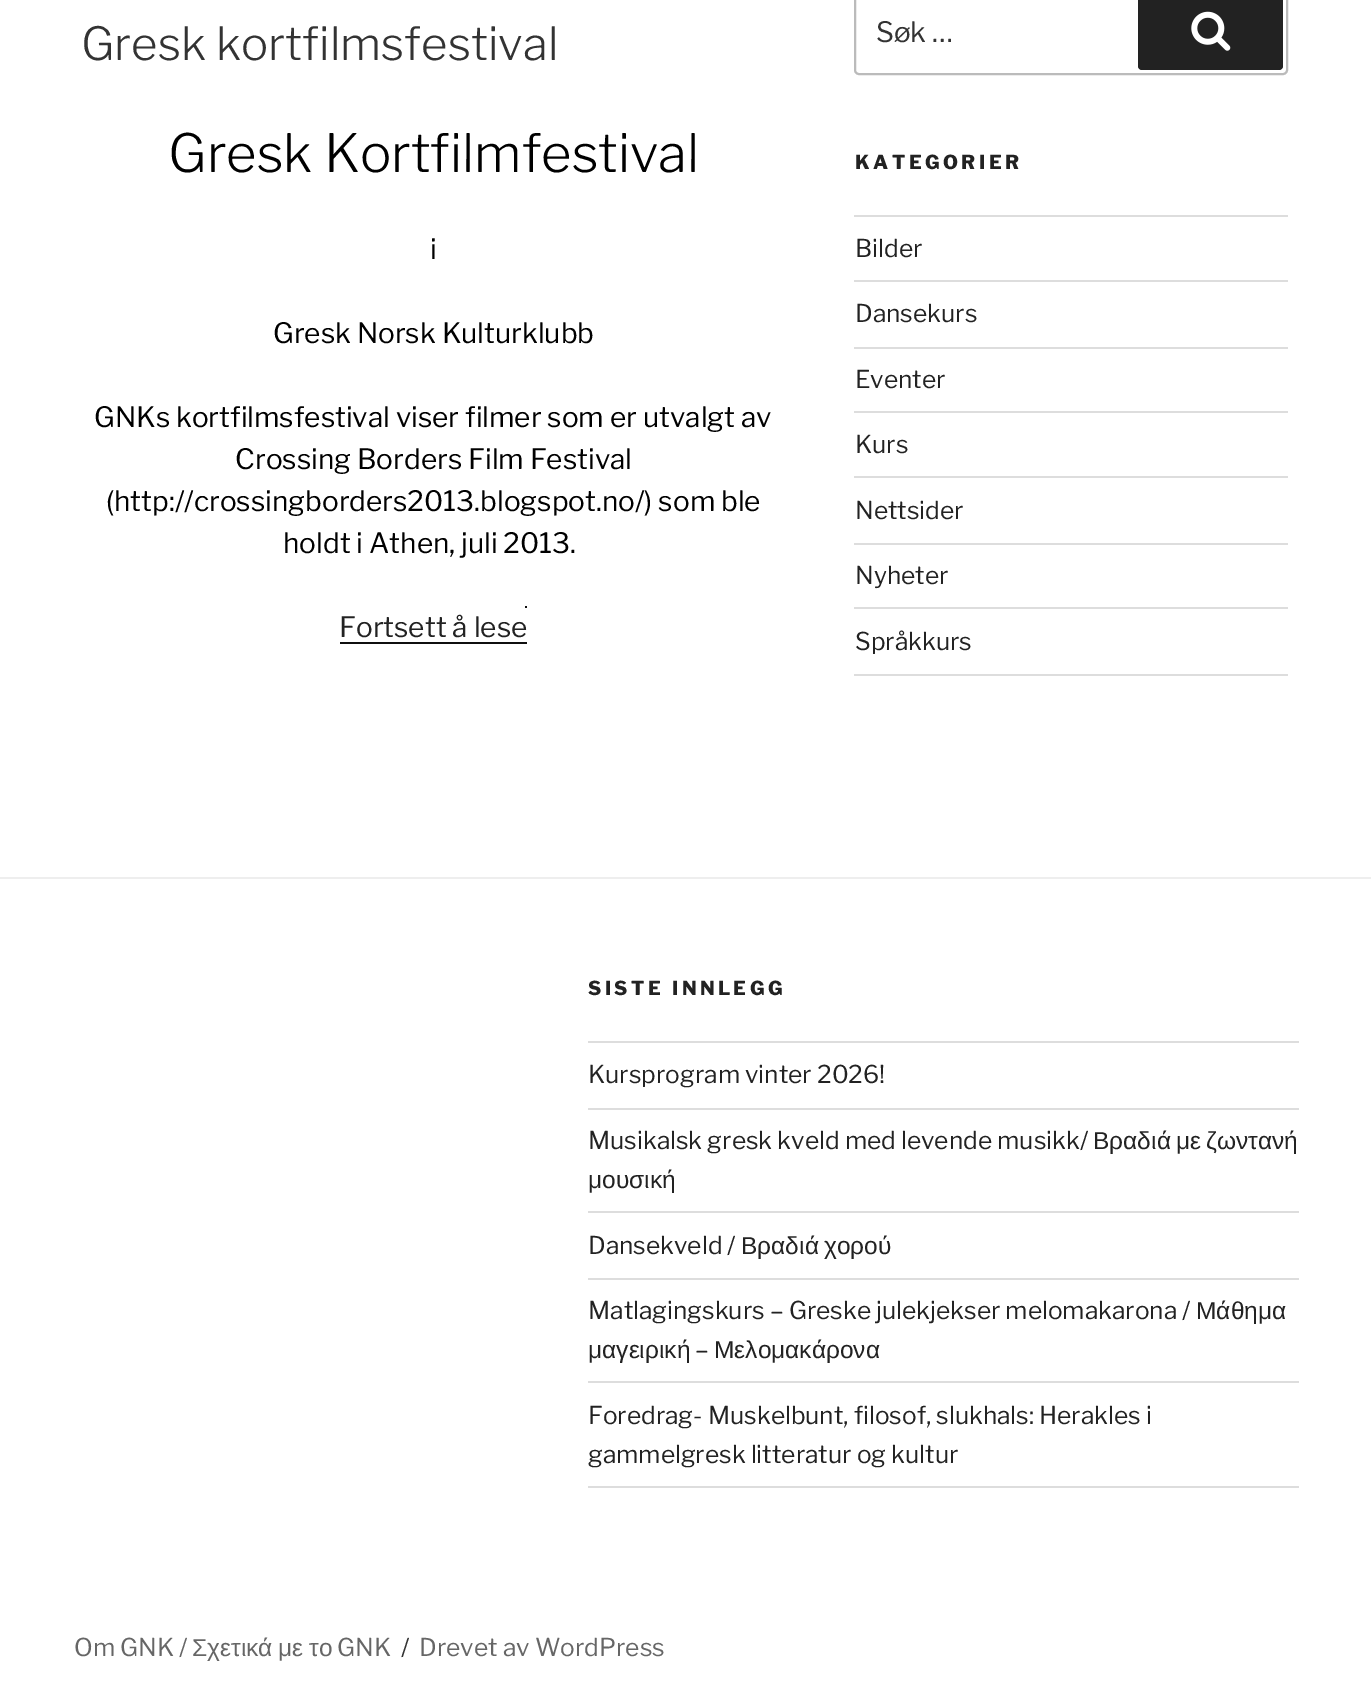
%!PS-Adobe-3.0
%%BoundingBox: 0 0 1371 1706
%%LanguageLevel: 3
%%Pages: 1
%%EndComments
%%BeginProlog
/setink { 3 { 255 div 3 1 roll } repeat setrgbcolor } def
/usefont { [ exch dup neg 0 0 3 -1 roll 0 0 ] selectfont } def
/drawtext { setink usefont moveto show } def
/fillbox { setink rectfill } def
/rrect { 5 dict begin { /r /h /w /y /x } { exch def } forall
  x r add y moveto x w add y 2 copy h add r arct x w add y h add x 1 index r arct
  x y h add x y r arct x y 2 copy exch w add exch r arct closepath end } def
/drawimage { 5 dict begin { /h /w /y /x /name } { exch def } forall
  gsave x y translate w h scale
  w h 8 [w 0 0 h 0 0] name (r) file false 3 colorimage grestore end } def
%%EndProlog
%%BeginSetup
<< /PageSize [1371 1706] >> setpagedevice
%%EndSetup
%%Page: 1 1
0 1706 translate 1 -1 scale
4 setmiterlimit
0 0 1371 1706 255 255 255 fillbox
(Gresk kortfilmsfestival) 81 60 /LibreFranklin-Light 45.5 51 51 51 drawtext
(Gresk Kortfilmfestival) 168 172 /LibreFranklin-Light 52.5 0 0 0 drawtext
(i) 430 259 /LibreFranklin-Regular 28 0 0 0 drawtext
(Gresk Norsk Kulturklubb) 273 343 /LibreFranklin-Regular 28 0 0 0 drawtext
(GNKs kortfilmsfestival viser filmer som er utvalgt av) 94 427 /LibreFranklin-Regular 28 0 0 0 drawtext
(Crossing Borders Film Festival) 235 469 /LibreFranklin-Regular 28 0 0 0 drawtext
(\(http://crossingborders2013.blogspot.no/\) som ble) 106 511 /LibreFranklin-Regular 28 0 0 0 drawtext
(holdt i Athen, juli 2013.) 283 553 /LibreFranklin-Regular 28 0 0 0 drawtext
(Fortsett å lese) 339 637 /LibreFranklin-Regular 28 34 34 34 drawtext
340 642 187 2 15 15 15 fillbox
525 606 2 2 15 15 15 fillbox
187 187 187 setink
2 setlinewidth
855 -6 432 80 4 rrect stroke
(Søk …) 876 42 /LibreFranklin-Regular 28 51 51 51 drawtext
34 34 34 setink
1138 -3 145 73 4 rrect fill
(assets/img1.rgb) 1191 11 40 40 drawimage
/LibreFranklin-ExtraBold 19.25 usefont
855 169 moveto 3.5 0 (KATEGORIER) ashow
854 215 434 2 221 221 221 fillbox
854 280 434 2 221 221 221 fillbox
(Bilder) 855 257 /LibreFranklin-Regular 24.5 34 34 34 drawtext
854 347 434 2 221 221 221 fillbox
(Dansekurs) 855 322 /LibreFranklin-Regular 24.5 34 34 34 drawtext
854 411 434 2 221 221 221 fillbox
(Eventer) 855 388 /LibreFranklin-Regular 24.5 34 34 34 drawtext
854 476 434 2 221 221 221 fillbox
(Kurs) 855 453 /LibreFranklin-Regular 24.5 34 34 34 drawtext
854 543 434 2 221 221 221 fillbox
(Nettsider) 855 519 /LibreFranklin-Regular 24.5 34 34 34 drawtext
854 607 434 2 221 221 221 fillbox
(Nyheter) 855 584 /LibreFranklin-Regular 24.5 34 34 34 drawtext
854 674 434 2 221 221 221 fillbox
(Språkkurs) 855 650 /LibreFranklin-Regular 24.5 34 34 34 drawtext
0 877 1371 2 238 238 238 fillbox
/LibreFranklin-ExtraBold 19.25 usefont
34 34 34 setink
588 995 moveto 3.5 0 (SISTE INNLEGG) ashow
588 1041 711 2 221 221 221 fillbox
588 1108 711 2 221 221 221 fillbox
(Kursprogram vinter 2026!) 588 1083 /LibreFranklin-Regular 24.5 34 34 34 drawtext
588 1211 711 2 221 221 221 fillbox
(Musikalsk gresk kveld med levende musikk/) 588 1149 /LibreFranklin-Regular 24.5 34 34 34 drawtext
(Βραδιά) 1093 1149 /LiberationSans-Regular 24.5 34 34 34 drawtext
(με) 1176 1149 /LiberationSans-Regular 24.5 34 34 34 drawtext
(ζωντανή) 1206 1149 /LiberationSans-Regular 24.5 34 34 34 drawtext
(μουσική) 588 1188 /LiberationSans-Regular 24.5 34 34 34 drawtext
588 1278 711 2 221 221 221 fillbox
(Dansekveld /) 588 1254 /LibreFranklin-Regular 24.5 34 34 34 drawtext
(Βραδιά) 741 1254 /LiberationSans-Regular 24.5 34 34 34 drawtext
(χορού) 824 1254 /LiberationSans-Regular 24.5 34 34 34 drawtext
588 1381 711 2 221 221 221 fillbox
(Matlagingskurs – Greske julekjekser melomakarona /) 588 1319 /LibreFranklin-Regular 24.5 34 34 34 drawtext
(Μάθημα) 1196 1319 /LiberationSans-Regular 24.5 34 34 34 drawtext
(μαγειρική) 588 1358 /LiberationSans-Regular 24.5 34 34 34 drawtext
(–) 695 1358 /LibreFranklin-Regular 24.5 34 34 34 drawtext
(Μελομακάρονα) 714 1358 /LiberationSans-Regular 24.5 34 34 34 drawtext
588 1486 711 2 221 221 221 fillbox
(Foredrag- Muskelbunt, filosof, slukhals: Herakles i) 588 1424 /LibreFranklin-Regular 24.5 34 34 34 drawtext
(gammelgresk litteratur og kultur) 588 1463 /LibreFranklin-Regular 24.5 34 34 34 drawtext
(Om GNK /) 74 1656 /LibreFranklin-Regular 24.5 102 102 102 drawtext
/LiberationSans-Regular 24.5 usefont
192 1656 moveto -1 0 32 (Σχετικά με το) widthshow
(GNK) 337 1656 /LibreFranklin-Regular 24.5 102 102 102 drawtext
(/) 401 1656 /LibreFranklin-Regular 24.5 51 51 51 drawtext
(Drevet av WordPress) 419 1656 /LibreFranklin-Regular 24.5 102 102 102 drawtext
showpage
%%EOF
